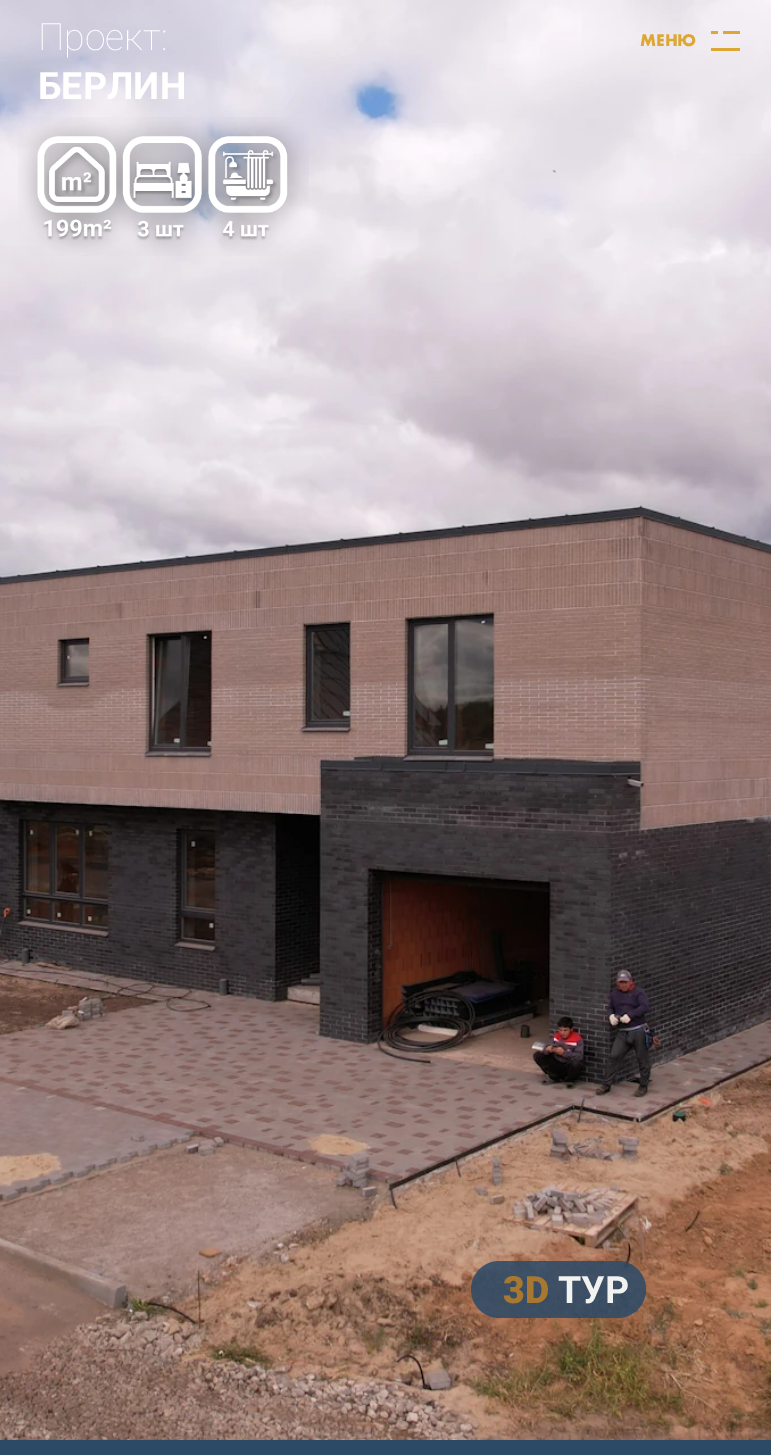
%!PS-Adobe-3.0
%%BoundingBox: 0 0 771 1455
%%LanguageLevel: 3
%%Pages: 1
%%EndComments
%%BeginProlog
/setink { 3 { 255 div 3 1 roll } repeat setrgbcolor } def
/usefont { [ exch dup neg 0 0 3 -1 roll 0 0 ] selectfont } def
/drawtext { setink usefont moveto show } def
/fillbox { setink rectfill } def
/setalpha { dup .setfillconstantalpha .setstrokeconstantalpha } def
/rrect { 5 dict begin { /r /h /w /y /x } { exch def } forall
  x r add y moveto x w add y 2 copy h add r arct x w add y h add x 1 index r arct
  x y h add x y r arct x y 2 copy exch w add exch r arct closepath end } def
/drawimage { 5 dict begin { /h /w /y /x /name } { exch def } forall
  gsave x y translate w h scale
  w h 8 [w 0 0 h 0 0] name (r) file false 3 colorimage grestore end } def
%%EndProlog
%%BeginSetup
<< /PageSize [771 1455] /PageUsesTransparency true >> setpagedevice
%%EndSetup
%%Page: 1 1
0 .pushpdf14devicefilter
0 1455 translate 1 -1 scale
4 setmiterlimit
0 0 771 1455 255 255 255 fillbox
(assets/img1.rgb) 0 0 771 1440 drawimage
(Проект:) 38 50 /Roboto-Thin 37.5 255 255 255 drawtext
(БЕРЛИН) 38 99 /Roboto-Bold 37.5 255 255 255 drawtext
(assets/img2.rgb) 18 117 291 139 drawimage
0.86 setalpha
44 74 103 setink
471 1261 175 57 28.5 rrect fill
1 setalpha
(3D) 503 1303 /Roboto-Black 37.5 168 120 48 drawtext
(ТУР) 558 1303 /Roboto-Bold 37.5 242 242 241 drawtext
(МЕНЮ) 640 46 /FuturaPT-Bold 17.5 220 167 50 drawtext
711 31 7 3 220 167 50 fillbox
723 31 17 3 220 167 50 fillbox
711 48 29 3 220 167 50 fillbox
0 1440 771 15 44 73 102 fillbox
.poppdf14devicefilter showpage
%%EOF
